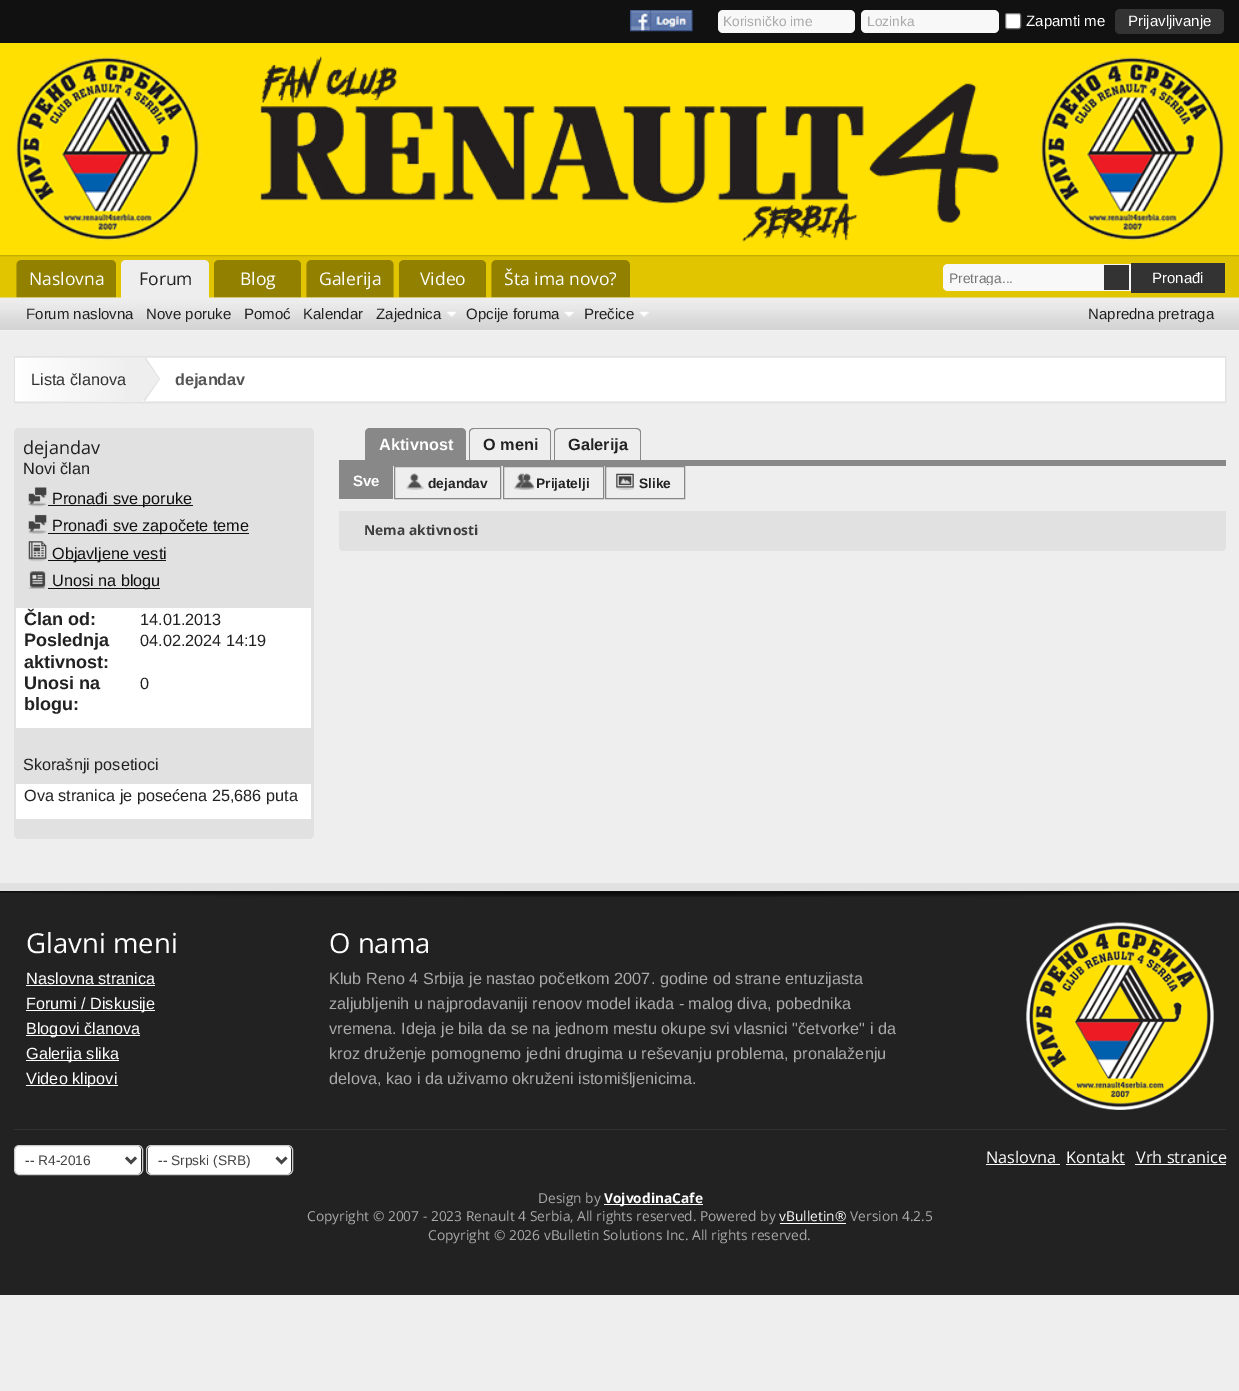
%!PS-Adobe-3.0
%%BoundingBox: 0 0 1239 1391
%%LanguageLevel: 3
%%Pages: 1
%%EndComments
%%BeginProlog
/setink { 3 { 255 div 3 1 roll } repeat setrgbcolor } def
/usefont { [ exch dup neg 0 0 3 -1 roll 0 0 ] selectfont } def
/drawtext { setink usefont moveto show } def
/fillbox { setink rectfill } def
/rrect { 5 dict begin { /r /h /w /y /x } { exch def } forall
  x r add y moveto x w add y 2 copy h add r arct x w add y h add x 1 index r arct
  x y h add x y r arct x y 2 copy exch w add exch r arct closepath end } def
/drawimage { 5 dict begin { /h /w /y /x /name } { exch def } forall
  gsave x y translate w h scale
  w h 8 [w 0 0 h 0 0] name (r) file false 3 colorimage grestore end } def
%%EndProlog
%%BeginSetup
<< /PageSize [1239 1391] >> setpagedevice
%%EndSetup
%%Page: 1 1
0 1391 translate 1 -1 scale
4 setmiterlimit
0 0 1239 1391 238 238 238 fillbox
0 0 1239 43 17 17 17 fillbox
(assets/img1.rgb) 630 10 63 22 drawimage
248 248 248 setink
718 10 137 23 5 rrect fill
(Korisničko ime) 723 26 /LiberationSans-Regular 13.75 170 170 170 drawtext
248 248 248 setink
861 10 138 23 5 rrect fill
(Lozinka) 867 26 /LiberationSans-Regular 13.75 170 170 170 drawtext
255 255 255 setink
1005.5 13.5 15 15 2 rrect gsave fill grestore
118 118 118 setink
stroke
(Zapamti me) 1026 26 /LiberationSans-Regular 15 255 255 255 drawtext
51 51 51 setink
1115 9 109 25 5 rrect fill
(Prijavljivanje) 1128 26 /LiberationSans-Regular 15 255 255 255 drawtext
0 43 1239 255 255 224 0 fillbox
(assets/img2.rgb) 13 55 1214 188 drawimage
(assets/img3.rgb) 0 255 1239 75 drawimage
0 330 1239 1 242 242 242 fillbox
(assets/img4.rgb) 16 260 100 38 drawimage
(Naslovna) 29 285 /OpenSans-Regular 17.5 255 255 255 drawtext
238 238 238 setink
126 260 moveto 204 260 lineto 207 260 209 262 209 265 curveto 209 298 lineto 121 298 lineto 121 265 lineto 121 262 123 260 126 260 curveto closepath fill
(Forum) 139 285 /OpenSans-Regular 17.5 34 34 34 drawtext
(assets/img5.rgb) 214 260 87 38 drawimage
(Blog) 240 285 /OpenSans-Regular 17.5 255 255 255 drawtext
(assets/img6.rgb) 306 260 88 38 drawimage
(Galerija) 319 285 /OpenSans-Regular 17.5 255 255 255 drawtext
(assets/img5.rgb) 399 260 87 38 drawimage
(Video) 420 285 /OpenSans-Regular 17.5 255 255 255 drawtext
(assets/img7.rgb) 491 260 139 38 drawimage
(Šta ima novo?) 504 285 /OpenSans-Regular 17.5 255 255 255 drawtext
(Forum naslovna) 26 319 /LiberationSans-Regular 15 34 34 34 drawtext
(Nove poruke) 146 319 /LiberationSans-Regular 15 34 34 34 drawtext
(Pomoć) 244 319 /LiberationSans-Regular 15 34 34 34 drawtext
(Kalendar) 303 319 /LiberationSans-Regular 15 34 34 34 drawtext
(Zajednica) 376 319 /LiberationSans-Regular 15 34 34 34 drawtext
(assets/img8.rgb) 446 311 11 6 drawimage
(Opcije foruma) 466 319 /LiberationSans-Regular 15 34 34 34 drawtext
(assets/img9.rgb) 564 311 10 6 drawimage
(Prečice) 584 319 /LiberationSans-Regular 15 34 34 34 drawtext
(assets/img10.rgb) 639 311 10 6 drawimage
248 248 248 setink
948 264 moveto 1136 264 lineto 1136 291 lineto 948 291 lineto 945 291 943 289 943 286 curveto 943 269 lineto 943 266 945 264 948 264 curveto closepath fill
gsave
949 270 181 15 rectclip
(Pretraga...) 949 283 /LiberationSans-Regular 13.75 117 117 117 drawtext
grestore
1131 263 94 30 51 51 51 fillbox
1104 265 25 25 51 51 51 fillbox
(Pronađi) 1152 283 /LiberationSans-Regular 15 255 255 255 drawtext
(Napredna pretraga) 1088 319 /LiberationSans-Regular 15 34 34 34 drawtext
143 358 1082 43 255 255 255 fillbox
225 225 225 setink
14.5 356.5 1211 46 rectstroke
gsave 15 358 moveto 124 358 lineto 124 401 lineto 15 401 lineto closepath clip newpath
<< /ShadingType 2 /ColorSpace /DeviceRGB /Coords [15 379 143 379] /Extend [true true] /Function << /FunctionType 2 /Domain [0 1] /C0 [1 1 1] /C1 [0.933 0.933 0.933] /N 1 >> >> shfill grestore
gsave
15 358 1210 43 rectclip
144 402 moveto 144 355 lineto 160 379 lineto closepath fill
238 238 238 setink
142 402 moveto 142 355 lineto 159 379 lineto closepath fill
grestore
(Lista članova) 31 385 /LiberationSans-Regular 16.25 51 51 51 drawtext
(dejandav) 175 385 /LiberationSans-Bold 16.25 85 85 85 drawtext
225 225 225 setink
14 428 300 411 5 rrect fill
15 429 298 1 225 225 225 fillbox
(dejandav) 23 454 /OpenSans-Regular 18 34 34 34 drawtext
(Novi član) 23 474 /LiberationSans-Regular 16.25 34 34 34 drawtext
(assets/img11.rgb) 28 487 19 20 drawimage
48 505 145 1 17 17 17 fillbox
(Pronađi sve poruke) 52 504 /LiberationSans-Regular 16.25 17 17 17 drawtext
(assets/img12.rgb) 28 514 19 20 drawimage
48 533 201 1 17 17 17 fillbox
(Pronađi sve započete teme) 52 531 /LiberationSans-Regular 16.25 17 17 17 drawtext
(assets/img13.rgb) 28 541 19 21 drawimage
48 560 118 1 17 17 17 fillbox
(Objavljene vesti) 52 559 /LiberationSans-Regular 16.25 17 17 17 drawtext
(assets/img14.rgb) 28 571 18 18 drawimage
48 588 112 1 17 17 17 fillbox
(Unosi na blogu) 52 586 /LiberationSans-Regular 16.25 17 17 17 drawtext
16 608 295 120 255 255 255 fillbox
(Član od:) 24 625 /LiberationSans-Bold 18 34 34 34 drawtext
(14.01.2013) 140 625 /LiberationSans-Regular 16.25 34 34 34 drawtext
(Poslednja) 24 646 /LiberationSans-Bold 18 34 34 34 drawtext
(aktivnost:) 24 668 /LiberationSans-Bold 18 34 34 34 drawtext
(04.02.2024 14:19) 140 646 /LiberationSans-Regular 16.25 34 34 34 drawtext
(Unosi na) 24 689 /LiberationSans-Bold 18 34 34 34 drawtext
(blogu:) 24 710 /LiberationSans-Bold 18 34 34 34 drawtext
(0) 140 689 /LiberationSans-Regular 16.25 34 34 34 drawtext
(Skorašnji posetioci) 23 770 /LiberationSans-Regular 16.25 34 34 34 drawtext
16 784 295 35 255 255 255 fillbox
(Ova stranica je posećena 25,686 puta) 24 801 /LiberationSans-Regular 16.25 34 34 34 drawtext
136 136 136 setink
370 428 moveto 461 428 lineto 464 428 466 430 466 433 curveto 466 460 lineto 365 460 lineto 365 433 lineto 365 430 367 428 370 428 curveto closepath fill
(Aktivnost) 379 450 /LiberationSans-Bold 16.25 255 255 255 drawtext
136 136 136 setink
474 428 moveto 546 428 lineto 549 428 551 430 551 432 curveto 551 460 lineto 469 460 lineto 469 432 lineto 469 430 471 428 474 428 curveto closepath 474 429 moveto 546 429 lineto 548 429 550 430 550 432 curveto 550 460 lineto 470 460 lineto 470 432 lineto 470 430 472 429 474 429 curveto closepath eofill
(O meni) 483 450 /LiberationSans-Bold 16.25 34 34 34 drawtext
136 136 136 setink
559 428 moveto 636 428 lineto 639 428 641 430 641 432 curveto 641 460 lineto 554 460 lineto 554 432 lineto 554 430 556 428 559 428 curveto closepath 559 429 moveto 636 429 lineto 638 429 640 430 640 432 curveto 640 460 lineto 555 460 lineto 555 432 lineto 555 430 557 429 559 429 curveto closepath eofill
(Galerija) 568 450 /LiberationSans-Bold 16.25 34 34 34 drawtext
339 460 887 6 136 136 136 fillbox
339 466 54 33 136 136 136 fillbox
(Sve) 353 486 /LiberationSans-Bold 15 255 255 255 drawtext
136 136 136 setink
394.5 466.5 106 32 rectstroke
(assets/img15.rgb) 406 473 18 17 drawimage
(dejandav) 428 488 /LiberationSans-Bold 13.75 34 34 34 drawtext
136 136 136 setink
503.5 466.5 100 32 rectstroke
(assets/img16.rgb) 513 473 21 17 drawimage
(Prijatelji) 536 488 /LiberationSans-Bold 13.75 34 34 34 drawtext
136 136 136 setink
605.5 466.5 79 32 rectstroke
(assets/img17.rgb) 616 473 19 17 drawimage
(Slike) 639 488 /LiberationSans-Bold 13.75 34 34 34 drawtext
225 225 225 setink
339 511 moveto 1226 511 lineto 1226 546 lineto 1226 549 1224 551 1221 551 curveto 344 551 lineto 341 551 339 549 339 546 curveto closepath fill
(Nema aktivnosti) 364 535 /OpenSans-Bold 13.75 62 62 62 drawtext
0 891 1239 404 34 34 34 fillbox
(assets/img18.rgb) 0 891 1239 6 drawimage
0 883 1239 8 225 225 225 fillbox
(Glavni meni) 26 953 /OpenSans-Regular 27.5 255 255 255 drawtext
(Naslovna stranica) 26 984 /LiberationSans-Regular 16.25 255 255 255 drawtext
26 985 129 1 255 255 255 fillbox
26 1010 129 1 255 255 255 fillbox
(Forumi / Diskusije) 26 1009 /LiberationSans-Regular 16.25 255 255 255 drawtext
26 1035 114 1 255 255 255 fillbox
(Blogovi članova) 26 1034 /LiberationSans-Regular 16.25 255 255 255 drawtext
26 1060 93 1 255 255 255 fillbox
(Galerija slika) 26 1059 /LiberationSans-Regular 16.25 255 255 255 drawtext
26 1085 92 1 255 255 255 fillbox
(Video klipovi) 26 1084 /LiberationSans-Regular 16.25 255 255 255 drawtext
(O nama) 329 953 /OpenSans-Regular 27.5 255 255 255 drawtext
(Klub Reno 4 Srbija je nastao početkom 2007. godine od strane entuzijasta) 329 984 /LiberationSans-Regular 16.25 170 170 170 drawtext
(zaljubljenih u najprodavaniji renoov model ikada - malog diva, pobednika) 329 1009 /LiberationSans-Regular 16.25 170 170 170 drawtext
(vremena. Ideja je bila da se na jednom mestu okupe svi vlasnici "četvorke" i da) 329 1034 /LiberationSans-Regular 16.25 170 170 170 drawtext
(kroz druženje pomognemo jedni drugima u reševanju problema, pronalaženju) 329 1059 /LiberationSans-Regular 16.25 170 170 170 drawtext
(delova, kao i da uživamo okruženi istomišljenicima.) 329 1084 /LiberationSans-Regular 16.25 170 170 170 drawtext
(assets/img19.rgb) 1026 922 188 188 drawimage
14 1129 1212 1 51 51 51 fillbox
255 255 255 setink
15 1146 126 28 4 rrect fill
204 204 204 setink
14.5 1145.5 128 29 4.5 rrect stroke
68 68 68 setink
2.5 setlinewidth
126 1157.5 moveto 131 1162.5 lineto 136 1157.5 lineto stroke
(-- R4-2016) 25 1165 /LiberationSans-Regular 13.75 68 68 68 drawtext
255 255 255 setink
148 1146 143 28 4 rrect fill
204 204 204 setink
1 setlinewidth
146.5 1145.5 146 29 4.5 rrect stroke
68 68 68 setink
2.5 setlinewidth
276.5 1157.5 moveto 281.5 1162.5 lineto 286.5 1157.5 lineto stroke
(-- Srpski \(SRB\)) 158 1165 /LiberationSans-Regular 13.75 68 68 68 drawtext
(Naslovna) 986 1163 /OpenSans-Regular 16.25 255 255 255 drawtext
986 1164 74 1 255 255 255 fillbox
(Kontakt) 1066 1163 /OpenSans-Regular 16.25 255 255 255 drawtext
1066 1164 59 1 255 255 255 fillbox
(Vrh stranice) 1136 1163 /OpenSans-Regular 16.25 255 255 255 drawtext
1135 1164 91 1 255 255 255 fillbox
(Design by) 538 1203 /OpenSans-Regular 13.75 170 170 170 drawtext
604 1204 99 1 255 255 255 fillbox
(VojvodinaCafe) 604 1203 /OpenSans-Bold 13.75 255 255 255 drawtext
(Copyright © 2007 - 2023 Renault 4 Serbia, All rights reserved. Powered by) 307 1221 /OpenSans-Regular 13.75 170 170 170 drawtext
(vBulletin®) 779 1221 /OpenSans-Regular 13.75 255 255 255 drawtext
780 1223 66 1 255 255 255 fillbox
(Version 4.2.5) 850 1221 /OpenSans-Regular 13.75 170 170 170 drawtext
(Copyright © 2026 vBulletin Solutions Inc. All rights reserved.) 428 1240 /OpenSans-Regular 13.75 170 170 170 drawtext
showpage
%%EOF
